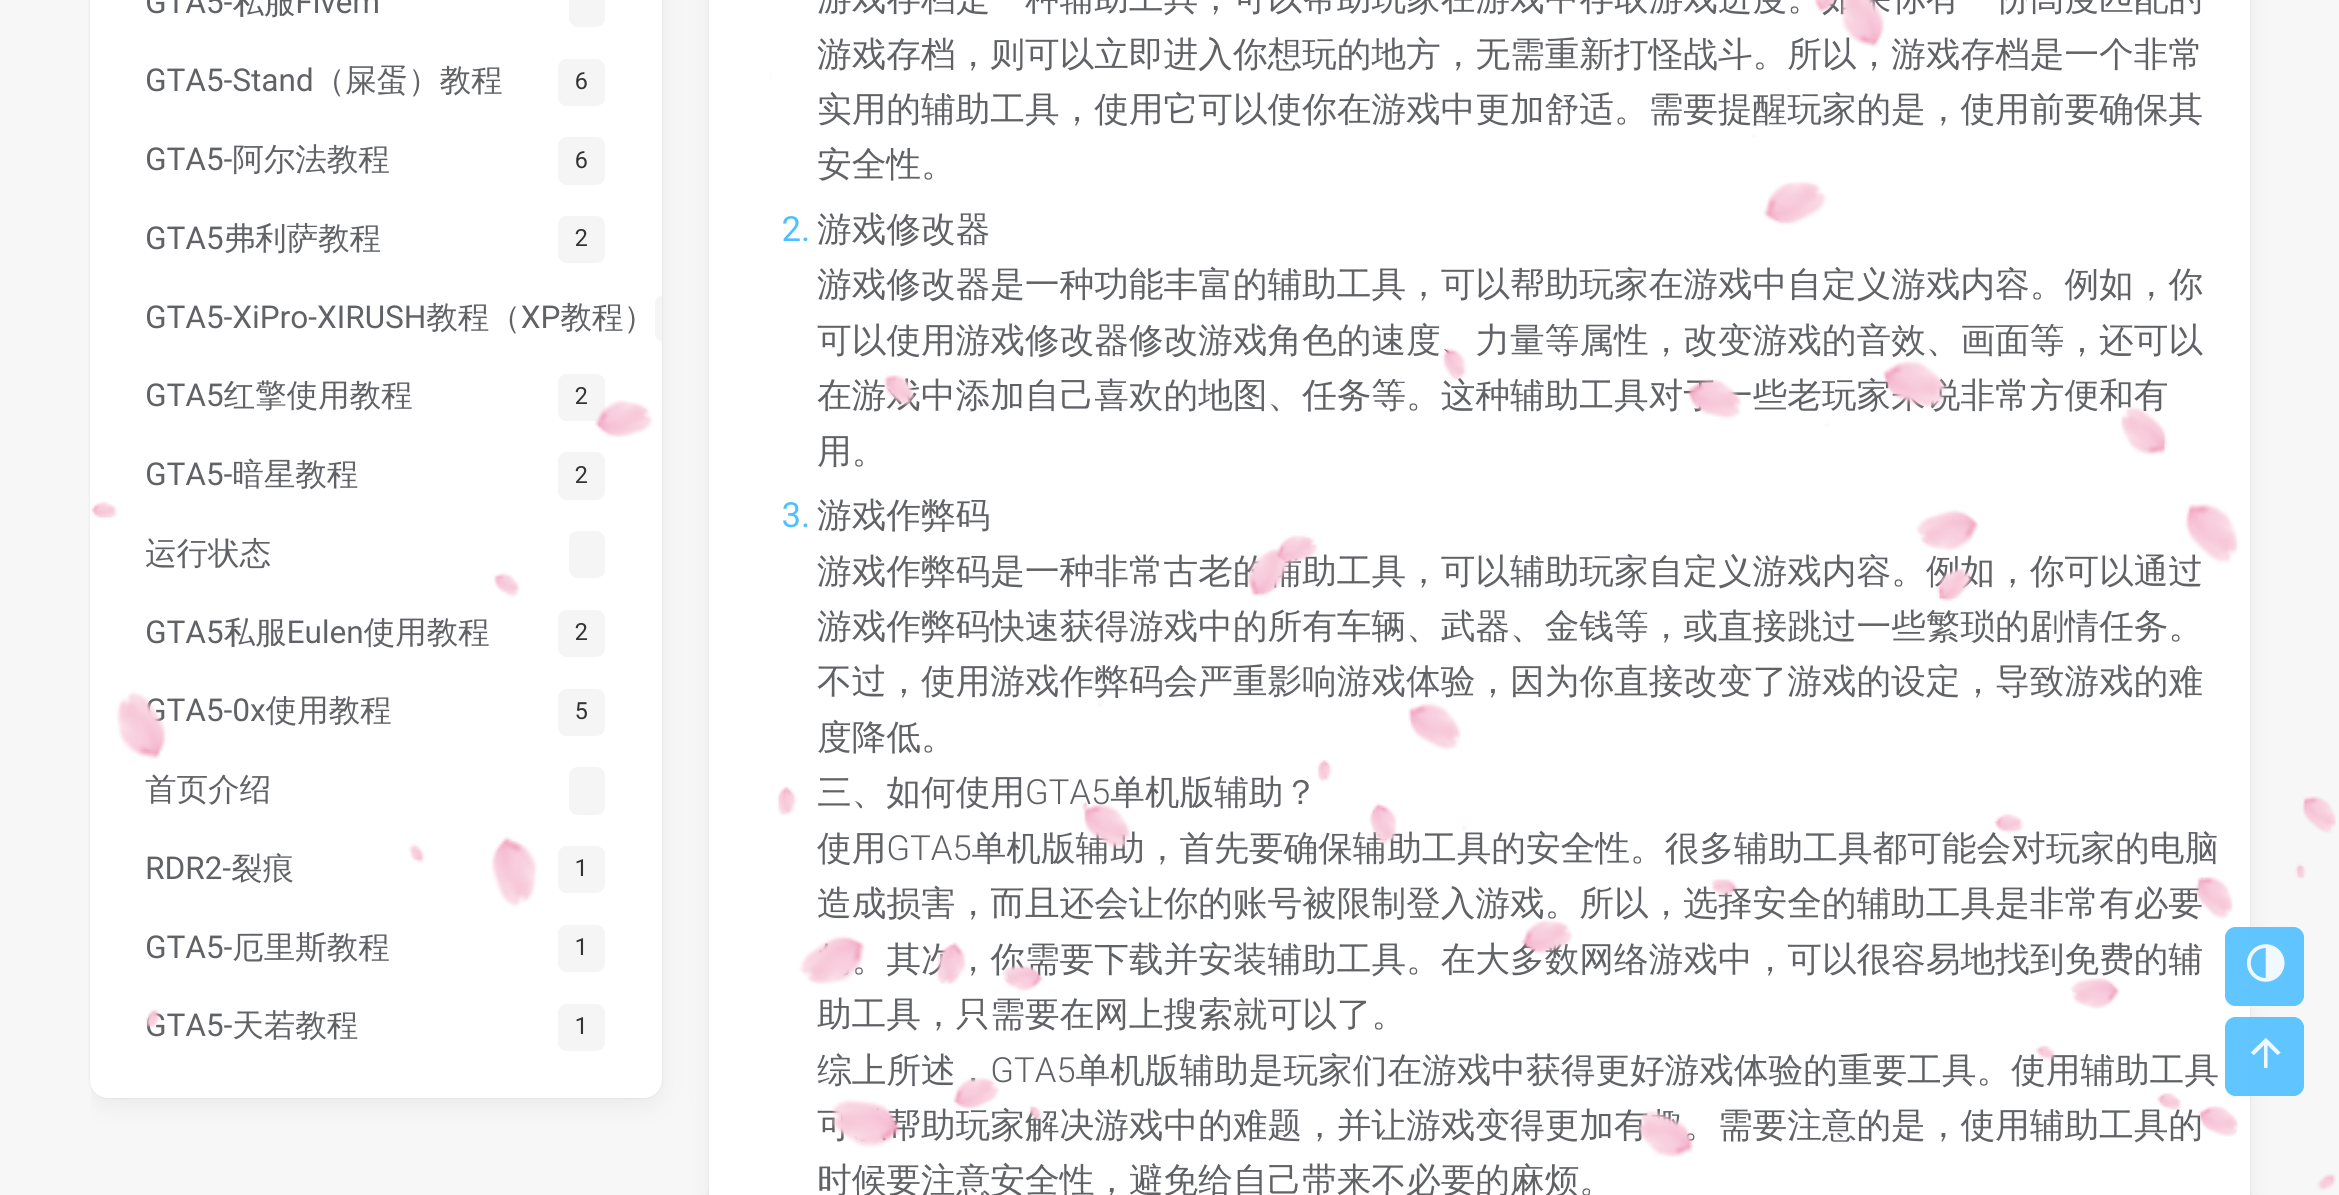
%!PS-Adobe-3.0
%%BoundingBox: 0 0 2339 1195
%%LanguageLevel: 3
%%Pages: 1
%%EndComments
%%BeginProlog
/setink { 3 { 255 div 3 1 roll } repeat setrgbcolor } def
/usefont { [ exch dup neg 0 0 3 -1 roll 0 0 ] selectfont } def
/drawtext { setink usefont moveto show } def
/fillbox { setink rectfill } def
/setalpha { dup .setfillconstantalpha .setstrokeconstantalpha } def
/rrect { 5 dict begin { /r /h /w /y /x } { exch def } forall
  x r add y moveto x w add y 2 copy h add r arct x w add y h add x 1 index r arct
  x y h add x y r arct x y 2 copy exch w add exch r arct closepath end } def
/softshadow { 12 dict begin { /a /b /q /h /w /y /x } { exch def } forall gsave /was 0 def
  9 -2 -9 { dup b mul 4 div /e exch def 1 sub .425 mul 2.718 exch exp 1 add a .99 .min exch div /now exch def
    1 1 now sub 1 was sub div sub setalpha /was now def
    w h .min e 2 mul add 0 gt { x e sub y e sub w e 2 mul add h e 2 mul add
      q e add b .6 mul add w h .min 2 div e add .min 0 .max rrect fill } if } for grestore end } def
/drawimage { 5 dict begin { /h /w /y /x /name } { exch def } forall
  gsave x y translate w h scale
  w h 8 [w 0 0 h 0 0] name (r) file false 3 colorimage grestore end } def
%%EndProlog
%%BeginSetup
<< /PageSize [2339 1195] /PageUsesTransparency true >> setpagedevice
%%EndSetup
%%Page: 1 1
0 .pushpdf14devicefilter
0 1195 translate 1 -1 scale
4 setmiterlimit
0 0 2339 1195 247 247 247 fillbox
gsave
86 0 moveto 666 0 lineto 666 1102 lineto 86 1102 lineto closepath 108 -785 moveto 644 -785 lineto 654 -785 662 -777 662 -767 curveto 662 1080 lineto 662 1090 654 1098 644 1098 curveto 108 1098 lineto 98 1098 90 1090 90 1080 curveto 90 -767 lineto 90 -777 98 -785 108 -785 curveto closepath eoclip newpath
0 0 0 setink
90 -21 572 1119 18 1 0.1 softshadow
grestore
0.94 setalpha
255 255 255 setink
90 -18 572 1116 18 rrect fill
1 setalpha
(-) 224 13 /Roboto-Regular 31.5 96 98 102 drawtext
(Fivem) 295 13 /Roboto-Regular 31.5 96 98 102 drawtext
245 245 245 setink
569 -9 36 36 9 rrect fill
(GTA5-Stand) 145 91 /Roboto-Regular 31.5 96 98 102 drawtext
(（屎蛋）教程) 314 91 /WenQuanYiZenHei-Medium 31.5 96 98 102 drawtext
245 245 245 setink
558 59 47 47 9 rrect fill
(6) 575 89 /Roboto-Regular 24 51 51 51 drawtext
(GTA5-) 145 170 /Roboto-Regular 31.5 96 98 102 drawtext
(阿尔法教程) 232 170 /WenQuanYiZenHei-Medium 31.5 96 98 102 drawtext
245 245 245 setink
558 137 47 48 9 rrect fill
(6) 575 168 /Roboto-Regular 24 51 51 51 drawtext
(GTA5) 145 249 /Roboto-Regular 31.5 96 98 102 drawtext
(弗利萨教程) 224 249 /WenQuanYiZenHei-Medium 31.5 96 98 102 drawtext
245 245 245 setink
558 216 47 47 9 rrect fill
(2) 575 246 /Roboto-Regular 24 51 51 51 drawtext
(GTA5-XiPro-XIRUSH) 145 328 /Roboto-Regular 31.5 96 98 102 drawtext
(教程（) 426 328 /WenQuanYiZenHei-Medium 31.5 96 98 102 drawtext
(XP) 521 328 /Roboto-Regular 31.5 96 98 102 drawtext
(教程）) 560 328 /WenQuanYiZenHei-Medium 31.5 96 98 102 drawtext
245 245 245 setink
664 295 moveto 662 295 lineto 662 342 lineto 664 342 lineto 659 342 655 338 655 333 curveto 655 304 lineto 655 299 659 295 664 295 curveto closepath fill
(GTA5) 145 406 /Roboto-Regular 31.5 96 98 102 drawtext
(红擎使用教程) 224 406 /WenQuanYiZenHei-Medium 31.5 96 98 102 drawtext
245 245 245 setink
558 374 47 47 9 rrect fill
(2) 575 404 /Roboto-Regular 24 51 51 51 drawtext
(GTA5-) 145 485 /Roboto-Regular 31.5 96 98 102 drawtext
(暗星教程) 232 485 /WenQuanYiZenHei-Medium 31.5 96 98 102 drawtext
245 245 245 setink
558 452 47 48 9 rrect fill
(2) 575 483 /Roboto-Regular 24 51 51 51 drawtext
(运行状态) 145 564 /WenQuanYiZenHei-Medium 31.5 96 98 102 drawtext
245 245 245 setink
569 531 36 47 9 rrect fill
(GTA5) 145 643 /Roboto-Regular 31.5 96 98 102 drawtext
(私服) 224 643 /WenQuanYiZenHei-Medium 31.5 96 98 102 drawtext
(Eulen) 287 643 /Roboto-Regular 31.5 96 98 102 drawtext
(使用教程) 364 643 /WenQuanYiZenHei-Medium 31.5 96 98 102 drawtext
245 245 245 setink
558 610 47 47 9 rrect fill
(2) 575 640 /Roboto-Regular 24 51 51 51 drawtext
(GTA5-0x) 145 721 /Roboto-Regular 31.5 96 98 102 drawtext
(使用教程) 266 721 /WenQuanYiZenHei-Medium 31.5 96 98 102 drawtext
245 245 245 setink
558 689 47 47 9 rrect fill
(5) 575 719 /Roboto-Regular 24 51 51 51 drawtext
(首页介绍) 145 800 /WenQuanYiZenHei-Medium 31.5 96 98 102 drawtext
245 245 245 setink
569 767 36 48 9 rrect fill
(RDR2-) 145 879 /Roboto-Regular 31.5 96 98 102 drawtext
(裂痕) 231 879 /WenQuanYiZenHei-Medium 31.5 96 98 102 drawtext
245 245 245 setink
558 846 47 47 9 rrect fill
(1) 575 876 /Roboto-Regular 24 51 51 51 drawtext
(GTA5-) 145 958 /Roboto-Regular 31.5 96 98 102 drawtext
(厄里斯教程) 232 958 /WenQuanYiZenHei-Medium 31.5 96 98 102 drawtext
245 245 245 setink
558 925 47 47 9 rrect fill
(1) 575 955 /Roboto-Regular 24 51 51 51 drawtext
(GTA5-) 145 1036 /Roboto-Regular 31.5 96 98 102 drawtext
(天若教程) 232 1036 /WenQuanYiZenHei-Medium 31.5 96 98 102 drawtext
245 245 245 setink
558 1004 47 47 9 rrect fill
(1) 575 1034 /Roboto-Regular 24 51 51 51 drawtext
0 0 0 setink
709 -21 1541 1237 18 1 0.1 softshadow
709 -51 1541 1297 18 11 0.05 softshadow
709 0 1541 1195 255 255 255 fillbox
(，) 1198 10 /WenQuanYiZenHei-Medium 34.65 96 98 102 drawtext
(。) 1787 10 /WenQuanYiZenHei-Medium 34.65 96 98 102 drawtext
(游戏存档，则可以立即进入你想玩的地方，无需重新打怪战斗。所以，游戏存档是一个非常) 817 66 /WenQuanYiZenHei-Medium 34.65 96 98 102 drawtext
(实用的辅助工具，使用它可以使你在游戏中更加舒适。需要提醒玩家的是，使用前要确保其) 817 121 /WenQuanYiZenHei-Medium 34.65 96 98 102 drawtext
(安全性。) 817 176 /WenQuanYiZenHei-Medium 34.65 96 98 102 drawtext
(2.) 782 241 /Roboto-Regular 34.65 80 191 255 drawtext
(游戏修改器) 817 241 /WenQuanYiZenHei-Medium 34.65 96 98 102 drawtext
(游戏修改器是一种功能丰富的辅助工具，可以帮助玩家在游戏中自定义游戏内容。例如，你) 817 296 /WenQuanYiZenHei-Medium 34.65 96 98 102 drawtext
(可以使用游戏修改器修改游戏角色的速度、力量等属性，改变游戏的音效、画面等，还可以) 817 352 /WenQuanYiZenHei-Medium 34.65 96 98 102 drawtext
(在游戏中添加自己喜欢的地图、任务等。这种辅助工具对) 817 407 /WenQuanYiZenHei-Medium 34.65 96 98 102 drawtext
(些老玩家) 1753 407 /WenQuanYiZenHei-Medium 34.65 96 98 102 drawtext
(非常方便和有) 1961 407 /WenQuanYiZenHei-Medium 34.65 96 98 102 drawtext
(用。) 817 463 /WenQuanYiZenHei-Medium 34.65 96 98 102 drawtext
(3.) 782 527 /Roboto-Regular 34.65 80 191 255 drawtext
(游戏作弊码) 817 527 /WenQuanYiZenHei-Medium 34.65 96 98 102 drawtext
(游戏作弊码是一种非常古老的辅助工具，可以辅助玩家自定义游戏内容。例如，你可以通过) 817 583 /WenQuanYiZenHei-Medium 34.65 96 98 102 drawtext
(游戏作弊码快速获得游戏中的所有车辆、武器、金钱等，或直接跳过一些繁琐的剧情任务。) 817 638 /WenQuanYiZenHei-Medium 34.65 96 98 102 drawtext
(不过，使用游戏作弊码会严重影响游戏体验，因为你直接改变了游戏的设定，导致游戏的难) 817 693 /WenQuanYiZenHei-Medium 34.65 96 98 102 drawtext
(度降低。) 817 749 /WenQuanYiZenHei-Medium 34.65 96 98 102 drawtext
(三、如何使用) 817 804 /WenQuanYiZenHei-Medium 34.65 96 98 102 drawtext
(GTA5) 1025 804 /Roboto-Light 34.65 96 98 102 drawtext
(单机版辅助？) 1110 804 /WenQuanYiZenHei-Medium 34.65 96 98 102 drawtext
(使用) 817 860 /WenQuanYiZenHei-Medium 34.65 96 98 102 drawtext
(GTA5) 886 860 /Roboto-Light 34.65 96 98 102 drawtext
(单机版辅助，首先要确保辅助工具的安全性。很多辅助工具都可能会对玩家的电脑) 972 860 /WenQuanYiZenHei-Medium 34.65 96 98 102 drawtext
(造成损害，而且还会让你的账号被限制登入游戏。所以，选择安全的辅助工具是非常有必要) 817 915 /WenQuanYiZenHei-Medium 34.65 96 98 102 drawtext
(。其次，你需要下载并安装辅助工具。在大多数网络游戏中，可以很容易地找到免费的辅) 852 971 /WenQuanYiZenHei-Medium 34.65 96 98 102 drawtext
(助工具，只需要在网上搜索就可以了。) 817 1026 /WenQuanYiZenHei-Medium 34.65 96 98 102 drawtext
(综上所述) 817 1082 /WenQuanYiZenHei-Medium 34.65 96 98 102 drawtext
(GTA5) 990 1082 /Roboto-Light 34.65 96 98 102 drawtext
(单机版辅助是玩家们在游戏中获得更好游戏体验的重要工具。使用辅助工具) 1076 1082 /WenQuanYiZenHei-Medium 34.65 96 98 102 drawtext
(可以帮助玩家解决游戏中的难题，并让游戏变得更加有趣。需要注意的是，使用辅助工具的) 817 1137 /WenQuanYiZenHei-Medium 34.65 96 98 102 drawtext
(时候要注意安全性，避免给自己带来不必要的麻烦。) 817 1192 /WenQuanYiZenHei-Medium 34.65 96 98 102 drawtext
(assets/img1.rgb) 91 0 2245 1191 drawimage
0.9 setalpha
80 191 255 setink
2225 927 79 79 11 rrect fill
1 setalpha
(assets/img2.rgb) 2247 944 38 38 drawimage
0.9 setalpha
2225 1017 79 79 11 rrect fill
1 setalpha
239 249 255 setink
2267.5 1045 moveto 2267.5 1068 lineto 2264 1068 lineto 2264 1045 lineto 2254 1055 lineto 2251 1052.5 lineto 2266 1038 lineto 2280.5 1052.5 lineto 2277.5 1055 lineto closepath fill
.poppdf14devicefilter showpage
%%EOF
